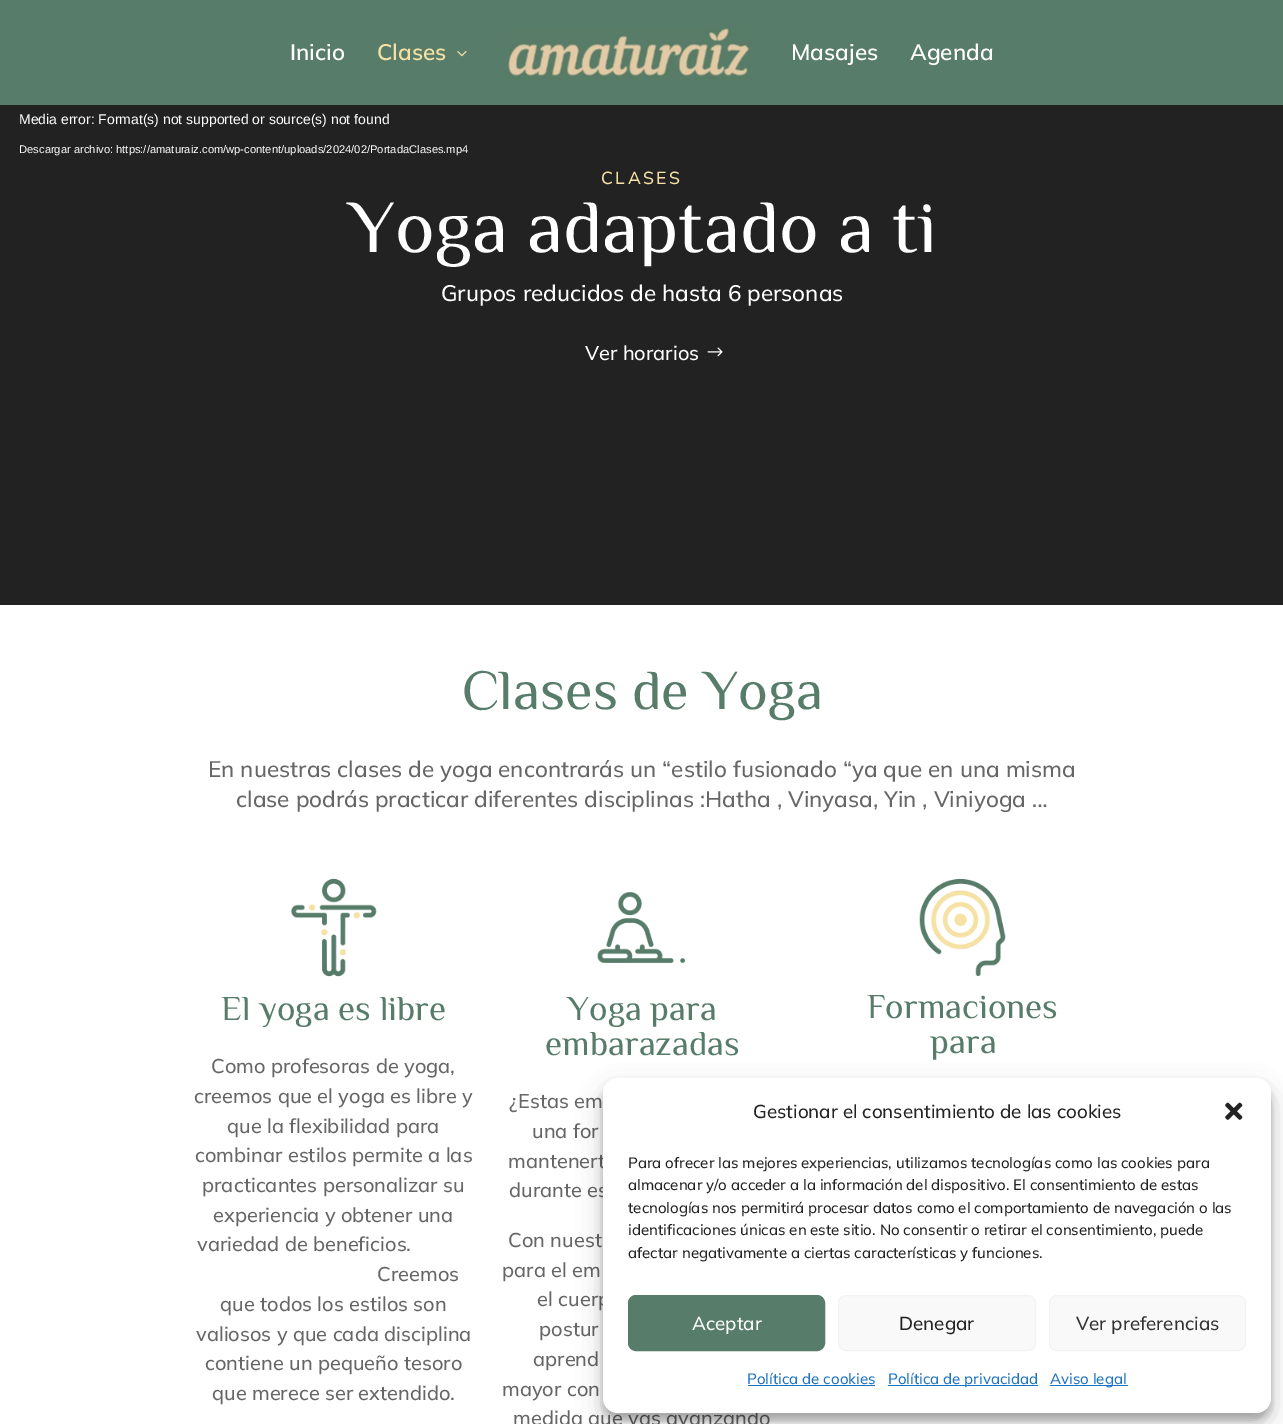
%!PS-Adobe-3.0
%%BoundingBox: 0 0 1283 1424
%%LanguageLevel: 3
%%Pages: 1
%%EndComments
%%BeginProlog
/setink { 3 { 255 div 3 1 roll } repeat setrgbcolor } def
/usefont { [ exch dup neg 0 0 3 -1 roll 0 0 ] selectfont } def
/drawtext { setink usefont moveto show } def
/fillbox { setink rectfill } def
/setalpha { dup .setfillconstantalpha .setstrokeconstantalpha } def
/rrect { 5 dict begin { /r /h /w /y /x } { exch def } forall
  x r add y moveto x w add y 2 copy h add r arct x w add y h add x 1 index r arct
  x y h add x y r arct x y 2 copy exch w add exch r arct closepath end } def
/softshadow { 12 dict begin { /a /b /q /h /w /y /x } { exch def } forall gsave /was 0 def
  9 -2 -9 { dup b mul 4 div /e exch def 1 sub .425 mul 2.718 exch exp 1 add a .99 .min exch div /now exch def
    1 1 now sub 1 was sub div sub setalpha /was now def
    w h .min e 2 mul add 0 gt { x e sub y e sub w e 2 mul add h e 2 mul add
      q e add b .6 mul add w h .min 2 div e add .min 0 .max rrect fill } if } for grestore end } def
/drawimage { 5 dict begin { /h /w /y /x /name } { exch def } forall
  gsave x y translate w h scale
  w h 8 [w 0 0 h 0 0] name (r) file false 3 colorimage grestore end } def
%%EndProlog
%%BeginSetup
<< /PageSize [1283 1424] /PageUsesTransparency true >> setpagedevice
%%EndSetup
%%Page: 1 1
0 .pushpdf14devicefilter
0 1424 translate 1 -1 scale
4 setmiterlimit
0 0 1283 1424 255 255 255 fillbox
31 31 31 setink
0 105 moveto 0 106 lineto 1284 106 lineto 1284 1 lineto 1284 105 lineto closepath fill
0 0 1283 105 87 124 105 fillbox
(Inicio) 290 60 /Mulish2-ExtraLight 22.5 255 255 255 drawtext
(Clases) 377 60 /Mulish2-ExtraLight 22.5 245 225 164 drawtext
(assets/img1.rgb) 457 51 10 6 drawimage
(assets/img2.rgb) 508 28 242 51 drawimage
(Masajes) 791 60 /Mulish2-ExtraLight 22.5 255 255 255 drawtext
(Agenda) 910 60 /Mulish2-ExtraLight 22.5 255 255 255 drawtext
0 106 1283 499 34 34 34 fillbox
(Media error: Format\(s\) not supported or source\(s\) not found) 19 124 /LiberationSans-Regular 14 255 255 255 drawtext
(Descargar archivo: https://amaturaiz.com/wp-content/uploads/2024/02/PortadaClases.mp4) 19 153 /LiberationSans-Regular 11.2 255 255 255 drawtext
/Mulish-ExtraLight 17.5 usefont
245 225 164 setink
601 184 moveto 2.5 0 (CLASES) ashow
(Yoga adaptado a ti) 348 252 /Philosopher-Regular 75 255 255 255 drawtext
(Grupos reducidos de hasta 6 personas) 441 301 /Mulish-ExtraLight 22.5 255 255 255 drawtext
(Ver horarios) 585 360 /Mulish-ExtraLight 20 255 255 255 drawtext
(assets/img3.rgb) 707 347 16 10 drawimage
(Clases de Yoga) 462 709 /Philosopher-Regular 56.25 87 124 105 drawtext
(En nuestras clases de yoga encontrarás un “estilo fusionado “ya que en una misma) 208 777 /Mulish-ExtraLight 22.5 102 102 102 drawtext
(clase podrás practicar diferentes disciplinas :Hatha , Vinyasa, Yin , Viniyoga …) 236 807 /Mulish-ExtraLight 22.5 102 102 102 drawtext
(assets/img4.rgb) 291 878 86 99 drawimage
(El yoga es libre) 221 1020 /Philosopher-Regular 35 87 124 105 drawtext
(Como profesoras de yoga,) 211 1073 /Mulish-ExtraLight 20 102 102 102 drawtext
(creemos que el yoga es libre y) 194 1103 /Mulish-ExtraLight 20 102 102 102 drawtext
(que la flexibilidad para) 227 1133 /Mulish-ExtraLight 20 102 102 102 drawtext
(combinar estilos permite a las) 195 1162 /Mulish-ExtraLight 20 102 102 102 drawtext
(practicantes personalizar su) 202 1192 /Mulish-ExtraLight 20 102 102 102 drawtext
(experiencia y obtener una) 213 1222 /Mulish-ExtraLight 20 102 102 102 drawtext
(variedad de beneficios.) 197 1251 /Mulish-ExtraLight 20 102 102 102 drawtext
(Creemos) 377 1281 /Mulish-ExtraLight 20 102 102 102 drawtext
(que todos los estilos son) 220 1311 /Mulish-ExtraLight 20 102 102 102 drawtext
(valiosos y que cada disciplina) 196 1341 /Mulish-ExtraLight 20 102 102 102 drawtext
(contiene un pequeño tesoro) 205 1370 /Mulish-ExtraLight 20 102 102 102 drawtext
(que merece ser extendido.) 212 1400 /Mulish-ExtraLight 20 102 102 102 drawtext
(assets/img5.rgb) 597 892 89 71 drawimage
(Yoga para) 567 1020 /Philosopher-Regular 35 87 124 105 drawtext
(embarazadas) 545 1055 /Philosopher-Regular 35 87 124 105 drawtext
(¿Estas em) 509 1108 /Mulish-ExtraLight 20 102 102 102 drawtext
(una for) 532 1138 /Mulish-ExtraLight 20 102 102 102 drawtext
(mantenert) 508 1168 /Mulish-ExtraLight 20 102 102 102 drawtext
(durante es) 509 1197 /Mulish-ExtraLight 20 102 102 102 drawtext
(Con nuest) 508 1247 /Mulish-ExtraLight 20 102 102 102 drawtext
(para el em) 502 1277 /Mulish-ExtraLight 20 102 102 102 drawtext
(el cuerp) 537 1306 /Mulish-ExtraLight 20 102 102 102 drawtext
(postur) 539 1336 /Mulish-ExtraLight 20 102 102 102 drawtext
(aprend) 533 1366 /Mulish-ExtraLight 20 102 102 102 drawtext
(mayor con) 502 1396 /Mulish-ExtraLight 20 102 102 102 drawtext
(medida que vas avanzando) 513 1425 /Mulish-ExtraLight 20 102 102 102 drawtext
(assets/img6.rgb) 919 878 87 99 drawimage
(Formaciones) 867 1018 /Philosopher-Regular 35 87 124 105 drawtext
(para) 930 1053 /Philosopher-Regular 35 87 124 105 drawtext
0 0 0 setink
603 1085 668 335 15 4 0.23 softshadow
603 1090 668 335 15 12.5 0.19 softshadow
255 255 255 setink
603 1078 668 335 15 rrect fill
(Gestionar el consentimiento de las cookies) 753 1118 /Mulish-ExtraLight 18.75 34 34 34 drawtext
(assets/img7.rgb) 1225 1102 18 18 drawimage
(Para ofrecer las mejores experiencias, utilizamos tecnologías como las cookies para) 628 1168 /Mulish-ExtraLight 15 34 34 34 drawtext
(almacenar y/o acceder a la información del dispositivo. El consentimiento de estas) 628 1190 /Mulish-ExtraLight 15 34 34 34 drawtext
(tecnologías nos permitirá procesar datos como el comportamiento de navegación o las) 628 1213 /Mulish-ExtraLight 15 34 34 34 drawtext
(identificaciones únicas en este sitio. No consentir o retirar el consentimiento, puede) 628 1235 /Mulish-ExtraLight 15 34 34 34 drawtext
(afectar negativamente a ciertas características y funciones.) 628 1258 /Mulish-ExtraLight 15 34 34 34 drawtext
87 124 105 setink
628.5 1295.5 196 55 7.5 rrect gsave fill grestore
stroke
(Aceptar) 692 1330 /Mulish-ExtraLight 18.75 255 255 255 drawtext
249 249 249 setink
838.5 1295.5 197 55 7.5 rrect gsave fill grestore
242 242 242 setink
stroke
(Denegar) 899 1330 /Mulish-ExtraLight 18.75 34 34 34 drawtext
249 249 249 setink
1049.5 1295.5 196 55 7.5 rrect gsave fill grestore
242 242 242 setink
stroke
(Ver preferencias) 1076 1330 /Mulish-ExtraLight 18.75 51 51 51 drawtext
(Política de cookies) 747 1384 /Mulish-ExtraLight 15 30 115 190 drawtext
748 1385 127 1 30 115 190 fillbox
888 1385 150 1 30 115 190 fillbox
(Política de privacidad) 888 1384 /Mulish-ExtraLight 15 30 115 190 drawtext
1050 1385 78 1 30 115 190 fillbox
(Aviso legal) 1050 1384 /Mulish-ExtraLight 15 30 115 190 drawtext
.poppdf14devicefilter showpage
%%EOF
